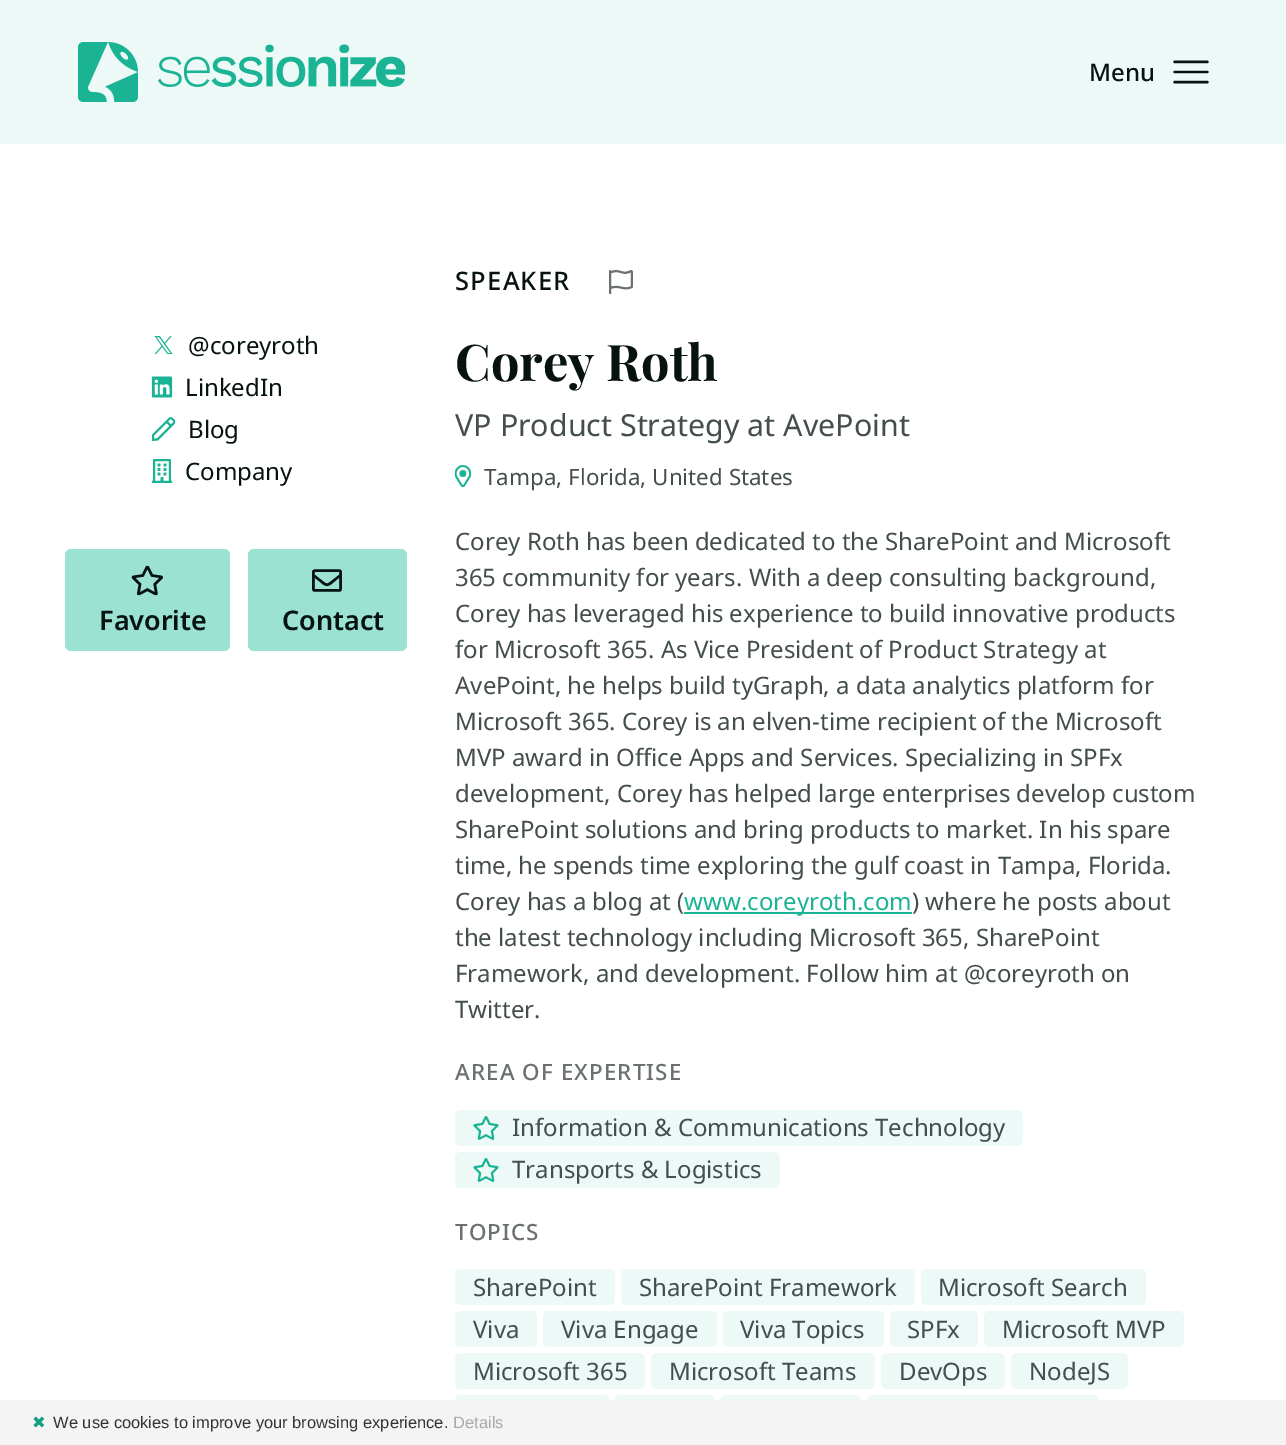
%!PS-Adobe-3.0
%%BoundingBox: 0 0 1286 1445
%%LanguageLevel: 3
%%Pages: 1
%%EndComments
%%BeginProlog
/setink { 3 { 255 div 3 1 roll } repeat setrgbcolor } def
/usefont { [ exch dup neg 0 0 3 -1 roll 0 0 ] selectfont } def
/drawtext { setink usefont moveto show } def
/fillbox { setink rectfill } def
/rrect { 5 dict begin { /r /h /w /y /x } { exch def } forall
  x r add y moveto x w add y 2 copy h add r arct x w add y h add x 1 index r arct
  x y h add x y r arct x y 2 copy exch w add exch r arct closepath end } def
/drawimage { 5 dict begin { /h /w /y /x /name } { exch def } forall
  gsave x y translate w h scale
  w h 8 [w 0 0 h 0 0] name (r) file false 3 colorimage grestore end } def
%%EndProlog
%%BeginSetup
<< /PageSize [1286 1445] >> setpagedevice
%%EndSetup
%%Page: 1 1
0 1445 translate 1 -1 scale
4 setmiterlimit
0 0 1286 1445 255 255 255 fillbox
0 0 1286 144 236 249 246 fillbox
(assets/img1.rgb) 78 42 327 60 drawimage
(Menu) 1089 81 /NotoSans-Medium 24 6 19 17 drawtext
(assets/img2.rgb) 1173 60 36 24 drawimage
(assets/img3.rgb) 154 336 19 18 drawimage
(@coreyroth) 188 354 /NotoSans-Regular 24 6 19 17 drawtext
(assets/img4.rgb) 151 376 22 22 drawimage
(LinkedIn) 185 396 /NotoSans-Regular 24 6 19 17 drawtext
(assets/img5.rgb) 151 417 25 24 drawimage
(Blog) 188 438 /NotoSans-Regular 24 6 19 17 drawtext
(assets/img6.rgb) 151 459 22 24 drawimage
(Company) 185 480 /NotoSans-Regular 24 6 19 17 drawtext
156 226 211 setink
65 549 165 102 6 rrect fill
(assets/img7.rgb) 131 565 32 31 drawimage
(Favorite) 99 630 /NotoSans-SemiBold 27 6 19 17 drawtext
156 226 211 setink
248 549 159 102 6 rrect fill
(assets/img8.rgb) 312 569 30 23 drawimage
(Contact) 282 630 /NotoSans-SemiBold 27 6 19 17 drawtext
/NotoSans-Medium 25.5 usefont
455 290 moveto 1.25 0 (SPEAKER) ashow
(assets/img9.rgb) 609 270 24 24 drawimage
(Corey Roth) 455 381 /PlayfairDisplay-Bold 50.5 6 19 17 drawtext
(VP Product Strategy at AvePoint) 455 436 /NotoSans-Regular 30.4 68 78 77 drawtext
(assets/img10.rgb) 454 465 18 23 drawimage
(Tampa, Florida, United States) 484 485 /NotoSans-Regular 22.4 68 78 77 drawtext
(Corey Roth has been dedicated to the SharePoint and Microsoft) 455 550 /NotoSans-Regular 24 68 78 77 drawtext
(365 community for years. With a deep consulting background,) 455 586 /NotoSans-Regular 24 68 78 77 drawtext
(Corey has leveraged his experience to build innovative products) 455 622 /NotoSans-Regular 24 68 78 77 drawtext
(for Microsoft 365. As Vice President of Product Strategy at) 455 658 /NotoSans-Regular 24 68 78 77 drawtext
(AvePoint, he helps build tyGraph, a data analytics platform for) 455 694 /NotoSans-Regular 24 68 78 77 drawtext
(Microsoft 365. Corey is an elven-time recipient of the Microsoft) 455 730 /NotoSans-Regular 24 68 78 77 drawtext
(MVP award in Office Apps and Services. Specializing in SPFx) 455 766 /NotoSans-Regular 24 68 78 77 drawtext
(development, Corey has helped large enterprises develop custom) 455 802 /NotoSans-Regular 24 68 78 77 drawtext
(SharePoint solutions and bring products to market. In his spare) 455 838 /NotoSans-Regular 24 68 78 77 drawtext
(time, he spends time exploring the gulf coast in Tampa, Florida.) 455 874 /NotoSans-Regular 24 68 78 77 drawtext
(Corey has a blog at \() 455 910 /NotoSans-Regular 24 68 78 77 drawtext
684 912 228 2 26 179 148 fillbox
(www.coreyroth.com) 684 910 /NotoSans-Regular 24 26 179 148 drawtext
(\) where he posts about) 912 910 /NotoSans-Regular 24 68 78 77 drawtext
(the latest technology including Microsoft 365, SharePoint) 455 946 /NotoSans-Regular 24 68 78 77 drawtext
(Framework, and development. Follow him at @coreyroth on) 455 982 /NotoSans-Regular 24 68 78 77 drawtext
(Twitter.) 455 1018 /NotoSans-Regular 24 68 78 77 drawtext
/NotoSans-Medium 22.4 usefont
106 113 112 setink
455 1080 moveto 1.1 0 (AREA OF EXPERTISE) ashow
236 249 246 setink
455 1110 568 36 6 rrect fill
(assets/img11.rgb) 473 1116 26 24 drawimage
(Information & Communications Technology) 512 1136 /NotoSans-Regular 24 68 78 77 drawtext
236 249 246 setink
455 1152 325 36 6 rrect fill
(assets/img11.rgb) 473 1158 26 24 drawimage
(Transports & Logistics) 512 1178 /NotoSans-Regular 24 68 78 77 drawtext
/NotoSans-Medium 22.4 usefont
106 113 112 setink
455 1240 moveto 1.1 0 (TOPICS) ashow
236 249 246 setink
455 1269 160 36 6 rrect fill
(SharePoint) 473 1296 /NotoSans-Regular 24 68 78 77 drawtext
236 249 246 setink
621 1269 294 36 6 rrect fill
(SharePoint Framework) 639 1296 /NotoSans-Regular 24 68 78 77 drawtext
236 249 246 setink
921 1269 225 36 6 rrect fill
(Microsoft Search) 938 1296 /NotoSans-Regular 24 68 78 77 drawtext
236 249 246 setink
455 1311 82 36 6 rrect fill
(Viva) 473 1338 /NotoSans-Regular 24 68 78 77 drawtext
236 249 246 setink
543 1311 174 36 6 rrect fill
(Viva Engage) 561 1338 /NotoSans-Regular 24 68 78 77 drawtext
236 249 246 setink
723 1311 161 36 6 rrect fill
(Viva Topics) 740 1338 /NotoSans-Regular 24 68 78 77 drawtext
236 249 246 setink
890 1311 88 36 6 rrect fill
(SPFx) 907 1338 /NotoSans-Regular 24 68 78 77 drawtext
236 249 246 setink
984 1311 200 36 6 rrect fill
(Microsoft MVP) 1002 1338 /NotoSans-Regular 24 68 78 77 drawtext
236 249 246 setink
455 1353 190 36 6 rrect fill
(Microsoft 365) 473 1380 /NotoSans-Regular 24 68 78 77 drawtext
236 249 246 setink
651 1353 224 36 6 rrect fill
(Microsoft Teams) 669 1380 /NotoSans-Regular 24 68 78 77 drawtext
236 249 246 setink
881 1353 124 36 6 rrect fill
(DevOps) 899 1380 /NotoSans-Regular 24 68 78 77 drawtext
236 249 246 setink
1011 1353 117 36 6 rrect fill
(NodeJS) 1029 1380 /NotoSans-Regular 24 68 78 77 drawtext
236 249 246 setink
455 1395 154 36 6 rrect fill
615 1395 99 36 6 rrect fill
720 1395 141 36 6 rrect fill
867 1395 231 36 6 rrect fill
0 1400 1286 45 244 244 244 fillbox
(✖) 32 1428 /DejaVuSans-Regular 16.5 23 157 130 drawtext
(We use cookies to improve your browsing experience.) 53 1428 /LiberationSans-Regular 16.5 51 51 51 drawtext
(Details) 453 1428 /LiberationSans-Regular 16.5 170 170 170 drawtext
showpage
%%EOF
